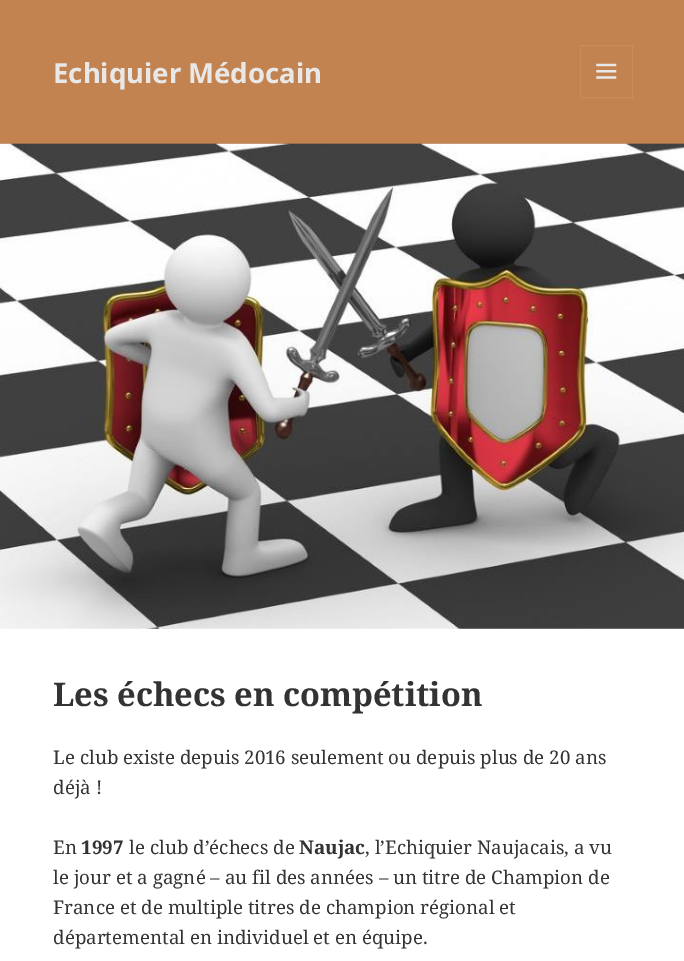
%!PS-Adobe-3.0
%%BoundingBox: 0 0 684 961
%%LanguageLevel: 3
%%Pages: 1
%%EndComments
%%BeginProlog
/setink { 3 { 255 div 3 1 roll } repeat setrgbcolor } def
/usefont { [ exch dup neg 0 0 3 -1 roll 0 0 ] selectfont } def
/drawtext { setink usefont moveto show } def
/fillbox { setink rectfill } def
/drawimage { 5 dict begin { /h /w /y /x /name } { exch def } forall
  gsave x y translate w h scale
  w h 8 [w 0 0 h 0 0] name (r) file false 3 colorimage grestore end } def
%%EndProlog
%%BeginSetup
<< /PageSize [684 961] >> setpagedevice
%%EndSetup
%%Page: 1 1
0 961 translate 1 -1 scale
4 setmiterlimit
0 0 684 961 195 131 80 fillbox
0 143 684 1 181 123 77 fillbox
(Echiquier Médocain) 53 83 /NotoSans-Bold 27.5 232 232 232 drawtext
199 141 95 setink
580.5 45.5 52 52 rectstroke
(assets/img1.rgb) 596 63 21 16 drawimage
0 628 684 333 255 255 255 fillbox
(assets/img2.rgb) 0 143 684 486 drawimage
(Les échecs en compétition) 53 706 /NotoSerif-Bold 32.5 51 51 51 drawtext
(Le club existe depuis 2016 seulement ou depuis plus de 20 ans) 53 764 /NotoSerif-Regular 18.75 51 51 51 drawtext
(déjà !) 53 794 /NotoSerif-Regular 18.75 51 51 51 drawtext
(En) 53 854 /NotoSerif-Regular 18.75 51 51 51 drawtext
(1997) 81 854 /NotoSerif-Bold 18.75 51 51 51 drawtext
(le club d’échecs de) 129 854 /NotoSerif-Regular 18.75 51 51 51 drawtext
(Naujac) 299 854 /NotoSerif-Bold 18.75 51 51 51 drawtext
(, l’Echiquier Naujacais, a vu) 365 854 /NotoSerif-Regular 18.75 51 51 51 drawtext
(le jour et a gagné – au fil des années – un titre de Champion de) 53 884 /NotoSerif-Regular 18.75 51 51 51 drawtext
(France et de multiple titres de champion régional et) 53 914 /NotoSerif-Regular 18.75 51 51 51 drawtext
(départemental en individuel et en équipe.) 53 944 /NotoSerif-Regular 18.75 51 51 51 drawtext
showpage
%%EOF
